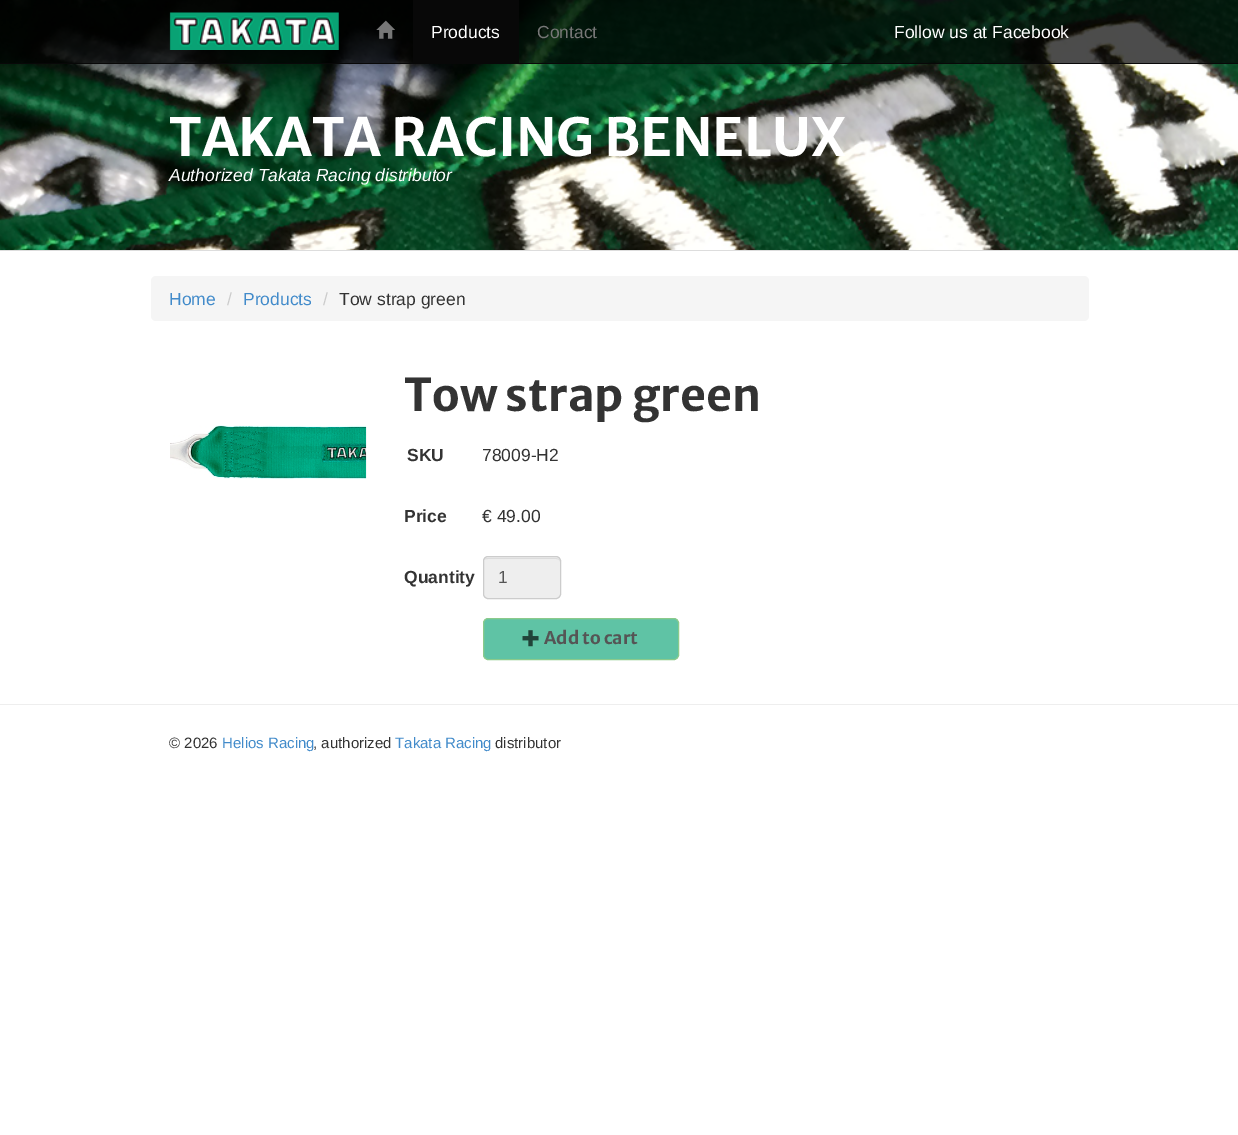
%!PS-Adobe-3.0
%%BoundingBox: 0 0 1238 1135
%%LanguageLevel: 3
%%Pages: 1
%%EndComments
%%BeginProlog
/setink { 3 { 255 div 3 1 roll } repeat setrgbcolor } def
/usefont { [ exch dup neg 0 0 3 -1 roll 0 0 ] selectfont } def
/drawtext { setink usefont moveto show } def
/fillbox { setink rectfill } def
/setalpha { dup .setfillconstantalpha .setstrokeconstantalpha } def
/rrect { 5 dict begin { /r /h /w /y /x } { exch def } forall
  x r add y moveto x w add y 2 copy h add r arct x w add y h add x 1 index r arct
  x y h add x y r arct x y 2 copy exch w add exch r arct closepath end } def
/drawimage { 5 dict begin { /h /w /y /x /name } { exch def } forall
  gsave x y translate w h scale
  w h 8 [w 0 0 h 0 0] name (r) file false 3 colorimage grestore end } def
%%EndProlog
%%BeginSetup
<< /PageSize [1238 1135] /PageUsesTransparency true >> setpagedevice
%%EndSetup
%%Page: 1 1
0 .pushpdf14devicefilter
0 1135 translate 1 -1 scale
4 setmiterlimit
0 0 1238 1135 255 255 255 fillbox
(assets/img3.rgb) 0 0 1238 250 drawimage
0.7 setalpha
0 0 1238 63 0 0 0 fillbox
1 setalpha
0 63 1238 1 8 8 8 fillbox
(assets/img1.rgb) 169 12 170 38 drawimage
(assets/img2.rgb) 376 20 19 19 drawimage
413 0 106 63 8 8 8 fillbox
(Products) 431 38 /LiberationSans-Regular 17.5 255 255 255 drawtext
(Contact) 537 38 /LiberationSans-Regular 17.5 119 119 119 drawtext
(Follow us at Facebook) 894 38 /LiberationSans-Regular 17.5 255 255 255 drawtext
0 250 1238 1 221 221 221 fillbox
(TAKATA RACING BENELUX) 169 156 /MerriweatherSans-Bold 52.5 255 255 255 drawtext
(Authorized Takata Racing distributor) 169 181 /LiberationSans-Italic 17.5 255 255 255 drawtext
245 245 245 setink
151 276 938 45 5 rrect fill
(Home) 169 305 /LiberationSans-Regular 17.5 66 139 202 drawtext
(/) 227 305 /LiberationSans-Regular 17.5 204 204 204 drawtext
(Products) 243 305 /LiberationSans-Regular 17.5 66 139 202 drawtext
(/) 323 305 /LiberationSans-Regular 17.5 204 204 204 drawtext
(Tow strap green) 339 305 /LiberationSans-Regular 17.5 51 51 51 drawtext
(assets/img4.rgb) 170 425 197 54 drawimage
(Tow strap green) 404 411 /MerriweatherSans-Bold 45 51 51 51 drawtext
(SKU) 407 461 /LiberationSans-Bold 17.5 51 51 51 drawtext
(78009-H2) 482 461 /LiberationSans-Regular 17.5 51 51 51 drawtext
(Price) 404 522 /LiberationSans-Bold 17.5 51 51 51 drawtext
(€ 49.00) 482 522 /LiberationSans-Regular 17.5 51 51 51 drawtext
(Quantity) 404 583 /LiberationSans-Bold 17.5 51 51 51 drawtext
238 238 238 setink
483 556 78 43 5 rrect fill
220 220 220 setink
488 559 moveto 556 559 lineto 558 559 560 560 560 562 curveto 560 560 558 558 556 558 curveto 488 558 lineto 486 558 485 559 484 560 curveto 485 559 486 559 488 559 curveto closepath fill
204 204 204 setink
483.5 556.5 77 42 4.5 rrect stroke
(1) 498 583 /LiberationSans-Regular 17.5 85 85 85 drawtext
95 195 165 setink
483.5 618.5 195 41 4.5 rrect gsave fill grestore
139 202 139 setink
stroke
(assets/img5.rgb) 522 630 17 17 drawimage
(Add to cart) 544 644 /MerriweatherSans-Bold 17.5 85 85 85 drawtext
0 704 1238 1 238 238 238 fillbox
(© 2026) 169 748 /LiberationSans-Regular 15 51 51 51 drawtext
(Helios Racing) 222 748 /LiberationSans-Regular 15 66 139 202 drawtext
(, authorized) 313 748 /LiberationSans-Regular 15 51 51 51 drawtext
(Takata Racing) 395 748 /LiberationSans-Regular 15 66 139 202 drawtext
(distributor) 495 748 /LiberationSans-Regular 15 51 51 51 drawtext
.poppdf14devicefilter showpage
%%EOF
